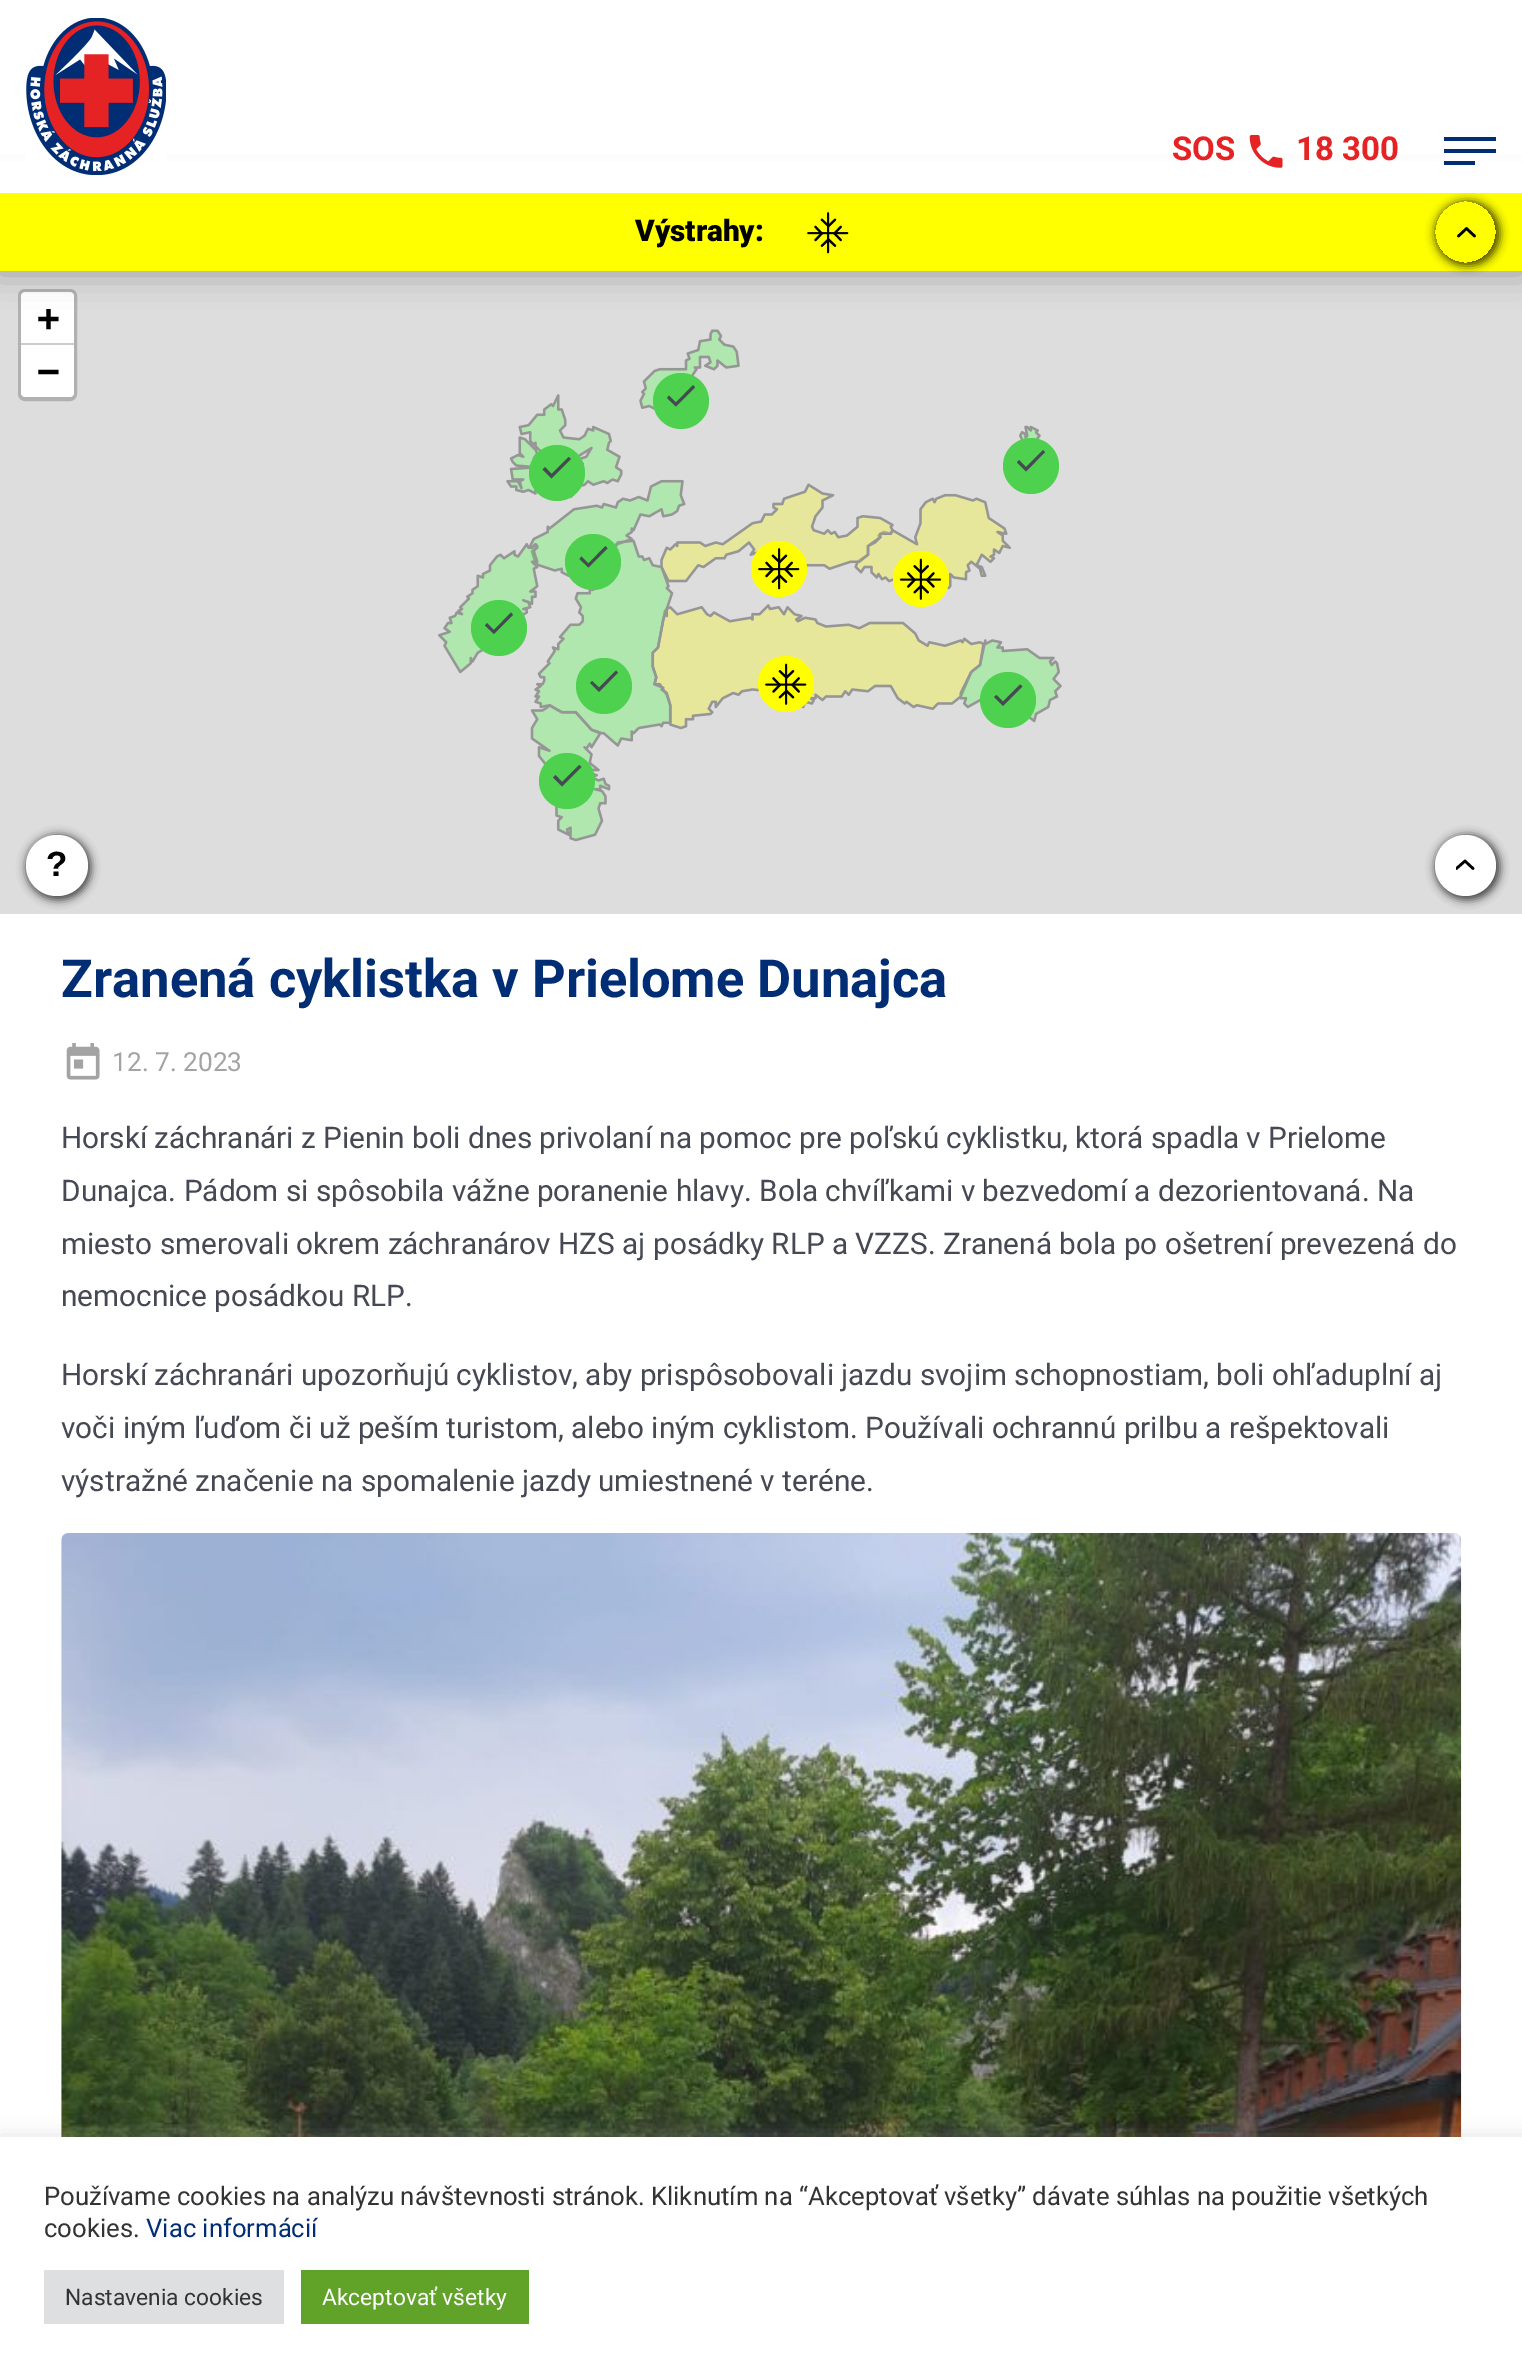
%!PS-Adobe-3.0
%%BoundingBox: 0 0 1522 2375
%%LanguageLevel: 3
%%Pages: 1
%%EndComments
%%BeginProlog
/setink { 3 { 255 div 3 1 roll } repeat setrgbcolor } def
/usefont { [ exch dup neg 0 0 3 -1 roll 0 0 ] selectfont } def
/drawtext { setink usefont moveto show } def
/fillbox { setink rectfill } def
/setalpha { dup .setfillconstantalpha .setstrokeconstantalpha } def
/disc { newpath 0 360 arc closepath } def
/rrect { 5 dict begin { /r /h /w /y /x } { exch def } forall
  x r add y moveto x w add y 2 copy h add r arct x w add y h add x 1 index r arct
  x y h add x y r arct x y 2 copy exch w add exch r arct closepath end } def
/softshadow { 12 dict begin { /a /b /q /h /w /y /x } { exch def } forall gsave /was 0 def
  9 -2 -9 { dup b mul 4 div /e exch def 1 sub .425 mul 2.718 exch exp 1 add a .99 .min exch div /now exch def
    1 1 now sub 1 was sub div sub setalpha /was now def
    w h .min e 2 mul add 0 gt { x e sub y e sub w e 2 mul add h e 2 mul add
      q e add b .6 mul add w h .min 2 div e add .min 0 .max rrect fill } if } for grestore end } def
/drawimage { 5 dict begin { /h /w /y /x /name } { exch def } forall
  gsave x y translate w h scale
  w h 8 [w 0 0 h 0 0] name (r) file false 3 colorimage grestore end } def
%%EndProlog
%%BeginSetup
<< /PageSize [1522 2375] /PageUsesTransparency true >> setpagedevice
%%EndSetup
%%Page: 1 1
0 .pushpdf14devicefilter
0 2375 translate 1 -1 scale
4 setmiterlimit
0 0 1522 2375 255 255 255 fillbox
0 271 1522 643 221 221 221 fillbox
177 177 177 setink
4 setlinewidth
20 291 55 108 5 rrect stroke
255 255 255 setink
25 292 moveto 70 292 lineto 72 292 74 294 74 296 curveto 74 345 lineto 21 345 lineto 21 296 lineto 21 294 23 292 25 292 curveto closepath fill
0 0 0 setink
-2 191 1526 82 0 16.5 0.3 softshadow
0 193 1522 78 255 255 0 fillbox
gsave
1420 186 moveto 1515 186 lineto 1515 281 lineto 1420 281 lineto closepath 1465.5 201 moveto 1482.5 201 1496 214.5 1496 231.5 curveto 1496 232.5 lineto 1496 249.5 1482.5 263 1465.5 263 curveto 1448.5 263 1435 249.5 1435 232.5 curveto 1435 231.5 lineto 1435 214.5 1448.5 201 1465.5 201 curveto closepath eoclip newpath
0 0 0 setink
1435 201 65 65 32.5 4.5 0.7 softshadow
grestore
0 161 1522 32 255 255 255 fillbox
(assets/img1.rgb) 26 18 140 157 drawimage
(SOS) 1172 160 /Roboto-Bold 33 229 35 37 drawtext
(assets/img2.rgb) 1249 135 34 33 drawimage
(18 300) 1296 160 /Roboto-Bold 33 229 35 37 drawtext
1444 161 31 4 0 45 115 fillbox
1444 137 52 4 0 45 115 fillbox
1444 149 52 4 0 45 115 fillbox
(Výstrahy:) 635 241 /Roboto-Black 29.75 0 0 0 drawtext
(assets/img3.rgb) 807 212 42 42 drawimage
2.6 setlinewidth
1 setlinecap
1 setlinejoin
1474.5 236 moveto 1466.5 228.5 lineto 1458.5 236 moveto 1466.5 228.5 lineto stroke
21 343 53 2 204 204 204 fillbox
(+) 37 331 /DejaVuSansMono-Bold 38 0 0 0 drawtext
255 255 255 setink
21 345 moveto 74 345 lineto 74 393 lineto 74 395 72 397 70 397 curveto 25 397 lineto 23 397 21 395 21 393 curveto closepath fill
(−) 37 384 /DejaVuSansMono-Bold 38 0 0 0 drawtext
(assets/img4.rgb) 438 329 624 513 drawimage
78 209 78 setink
681 401 28 disc fill
70 72 83 setink
676 402.5 moveto 693 385 lineto 695 387.5 lineto 676 406.5 lineto 667 398 lineto 669 395.5 lineto closepath fill
78 209 78 setink
557 473 28 disc fill
70 72 83 setink
551.5 474 moveto 568.5 457 lineto 571 459 lineto 551.5 478.5 lineto 542.5 469.5 lineto 545 467 lineto closepath fill
78 209 78 setink
1031 466 28 disc fill
70 72 83 setink
1026 467 moveto 1043 450 lineto 1045 452 lineto 1026 471.5 lineto 1017 462.5 lineto 1019 460 lineto closepath fill
78 209 78 setink
593 562 28 disc fill
70 72 83 setink
588.5 563.5 moveto 605.5 546 lineto 607.5 548.5 lineto 588.5 567.5 lineto 579.5 559 lineto 581.5 556.5 lineto closepath fill
255 255 0 setink
779 569 28 disc fill
(assets/img5.rgb) 758 548 42 42 drawimage
921 579 28 disc fill
(assets/img6.rgb) 899 558 43 42 drawimage
78 209 78 setink
499 628 28 disc fill
70 72 83 setink
494 630 moveto 511 612.5 lineto 513 615 lineto 494 634 lineto 485 625.5 lineto 487 623 lineto closepath fill
78 209 78 setink
604 686 28 disc fill
70 72 83 setink
599 687.5 moveto 616 670.5 lineto 618 672.5 lineto 599 692 lineto 590 683 lineto 592 681 lineto closepath fill
255 255 0 setink
786 684 28 disc fill
(assets/img7.rgb) 765 663 42 42 drawimage
78 209 78 setink
1008 700 28 disc fill
70 72 83 setink
1003 701.5 moveto 1020 684.5 lineto 1022.5 686.5 lineto 1003 706 lineto 994 697 lineto 996.5 695 lineto closepath fill
78 209 78 setink
567 781 28 disc fill
70 72 83 setink
562 782 moveto 579 765 lineto 581.5 767 lineto 562 786.5 lineto 553 777.5 lineto 555.5 775 lineto closepath fill
0 0 0 setink
26 835 65 65 32.5 4.5 0.7 softshadow
255 255 255 setink
26 835 62 61 30.5 rrect fill
(?) 46 876 /LiberationSans-Bold 35 0 0 0 drawtext
1435 835 65 65 32.5 4.5 0.7 softshadow
255 255 255 setink
1465.5 865.5 30.5 disc fill
gsave
1456 859 21 13 rectclip
0 0 0 setink
1473 868.5 moveto 1465 861 lineto 1456.5 868.5 moveto 1465 861 lineto stroke
grestore
(Zranená cyklistka v Prielome Dunajca) 61 997 /Roboto-Bold 52.5 0 45 115 drawtext
(assets/img8.rgb) 66 1043 34 37 drawimage
(12. 7. 2023) 112 1071 /Roboto-Regular 26.25 163 163 163 drawtext
(Horskí záchranári z Pienin boli dnes privolaní na pomoc pre poľskú cyklistku, ktorá spadla v Prielome) 61 1148 /Roboto-Regular 29.75 70 72 83 drawtext
(Dunajca. Pádom si spôsobila vážne poranenie hlavy. Bola chvíľkami v bezvedomí a dezorientovaná. Na) 61 1201 /Roboto-Regular 29.75 70 72 83 drawtext
(miesto smerovali okrem záchranárov HZS aj posádky RLP a VZZS. Zranená bola po ošetrení prevezená do) 61 1254 /Roboto-Regular 29.75 70 72 83 drawtext
(nemocnice posádkou RLP.) 61 1306 /Roboto-Regular 29.75 70 72 83 drawtext
(Horskí záchranári upozorňujú cyklistov, aby prispôsobovali jazdu svojim schopnostiam, boli ohľaduplní aj) 61 1385 /Roboto-Regular 29.75 70 72 83 drawtext
(voči iným ľuďom či už peším turistom, alebo iným cyklistom. Používali ochrannú prilbu a rešpektovali) 61 1438 /Roboto-Regular 29.75 70 72 83 drawtext
(výstražné značenie na spomalenie jazdy umiestnené v teréne.) 61 1491 /Roboto-Regular 29.75 70 72 83 drawtext
(assets/img9.rgb) 61 1533 1401 604 drawimage
172 171 171 setink
0 2135 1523 240 0 9 0.3 softshadow
0 2137 1522 238 255 255 255 fillbox
(Používame cookies na analýzu návštevnosti stránok. Kliknutím na “Akceptovať všetky” dávate súhlas na použitie všetkých) 44 2205 /Roboto-Regular 25.67 51 51 51 drawtext
(cookies.) 44 2237 /Roboto-Regular 25.67 51 51 51 drawtext
(Viac informácií) 146 2237 /Roboto-Regular 25.67 0 45 115 drawtext
44 2270 240 54 222 223 224 fillbox
(Nastavenia cookies) 65 2305 /Roboto-Regular 22.75 51 51 51 drawtext
301 2270 228 54 97 162 41 fillbox
(Akceptovať všetky) 322 2305 /Roboto-Regular 22.75 255 255 255 drawtext
.poppdf14devicefilter showpage
%%EOF
